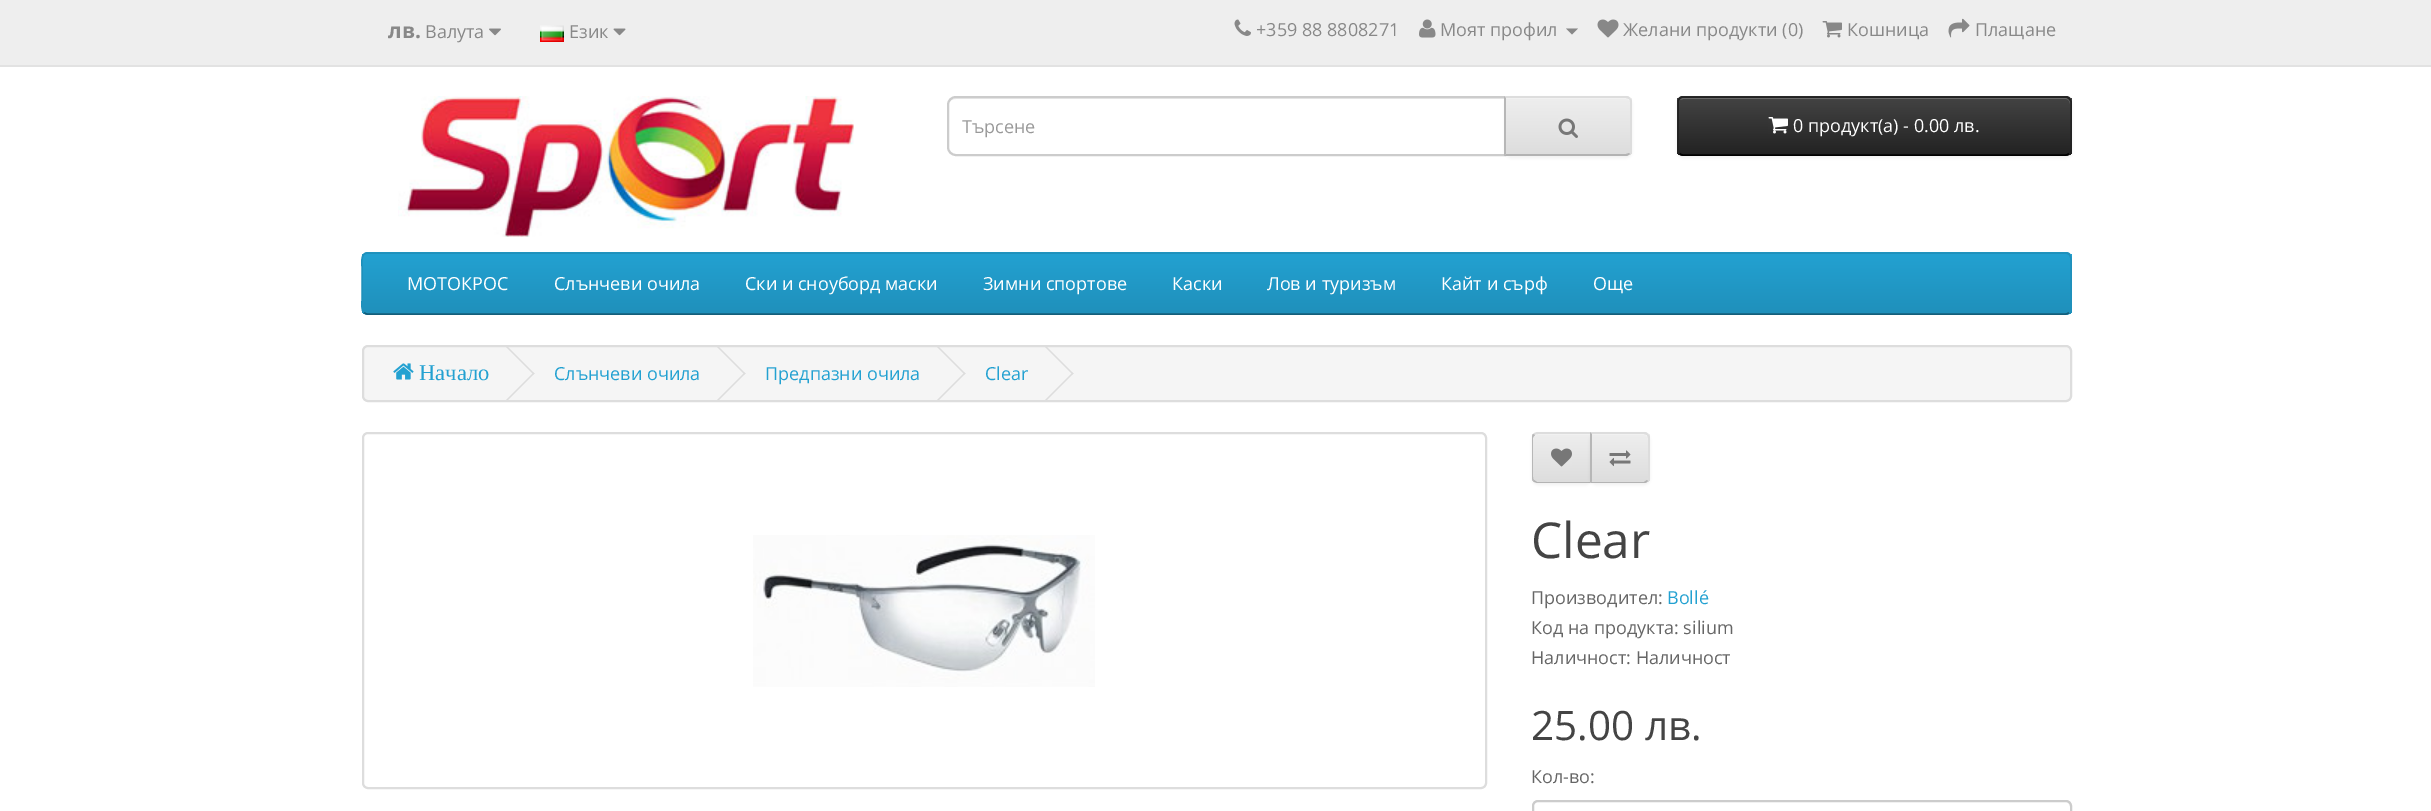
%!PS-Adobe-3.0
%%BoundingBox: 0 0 2431 811
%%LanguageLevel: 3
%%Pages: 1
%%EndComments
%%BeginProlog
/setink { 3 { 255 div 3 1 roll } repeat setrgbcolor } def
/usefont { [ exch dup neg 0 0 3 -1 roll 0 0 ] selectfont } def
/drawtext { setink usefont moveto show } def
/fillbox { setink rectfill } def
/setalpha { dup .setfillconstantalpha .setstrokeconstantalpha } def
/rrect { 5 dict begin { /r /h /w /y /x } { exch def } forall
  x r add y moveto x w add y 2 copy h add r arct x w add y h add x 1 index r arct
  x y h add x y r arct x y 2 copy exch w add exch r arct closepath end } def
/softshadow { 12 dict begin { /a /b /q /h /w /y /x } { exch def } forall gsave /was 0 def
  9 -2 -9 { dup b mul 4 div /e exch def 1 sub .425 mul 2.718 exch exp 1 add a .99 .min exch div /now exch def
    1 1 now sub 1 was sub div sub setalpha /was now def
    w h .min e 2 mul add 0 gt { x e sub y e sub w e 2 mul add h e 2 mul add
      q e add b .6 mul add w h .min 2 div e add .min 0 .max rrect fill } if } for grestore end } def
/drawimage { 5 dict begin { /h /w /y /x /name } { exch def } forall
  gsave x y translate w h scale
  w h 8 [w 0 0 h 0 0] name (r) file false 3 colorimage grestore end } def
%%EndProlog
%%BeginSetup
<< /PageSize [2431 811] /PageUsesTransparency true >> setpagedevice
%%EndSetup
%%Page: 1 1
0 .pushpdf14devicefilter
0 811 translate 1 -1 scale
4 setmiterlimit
0 0 2431 811 255 255 255 fillbox
0 0 2431 65 238 238 238 fillbox
0 65 2431 2 226 226 226 fillbox
(лв.) 388 38 /OpenSans-Bold 21 136 136 136 drawtext
(Валута) 425 38 /OpenSans-Regular 18 136 136 136 drawtext
(assets/img1.rgb) 489 28 12 8 drawimage
(assets/img2.rgb) 540 25 24 17 drawimage
(Език) 569 38 /OpenSans-Regular 18 136 136 136 drawtext
(assets/img3.rgb) 613 28 13 8 drawimage
(assets/img4.rgb) 1234 19 17 17 drawimage
(+359 88 8808271) 1256 36 /OpenSans-Regular 18 136 136 136 drawtext
(assets/img5.rgb) 1419 19 17 19 drawimage
(Моят профил) 1440 36 /OpenSans-Regular 18 136 136 136 drawtext
1566 28.5 moveto 1578 28.5 lineto 1572 34.5 lineto closepath fill
(assets/img6.rgb) 1597 19 22 19 drawimage
(Желани продукти \(0\)) 1623 36 /OpenSans-Regular 18 136 136 136 drawtext
(assets/img7.rgb) 1822 21 20 17 drawimage
(Кошница) 1847 36 /OpenSans-Regular 18 136 136 136 drawtext
(assets/img8.rgb) 1948 18 22 20 drawimage
(Плащане) 1975 36 /OpenSans-Regular 18 136 136 136 drawtext
(assets/img9.rgb) 398 96 456 141 drawimage
236 236 236 setink
956 99 moveto 1504 99 lineto 1504 155 lineto 1505 155 lineto 1505 98 lineto 956 98 lineto 952 98 948 102 948 106 curveto 948 102 951 99 956 99 curveto closepath fill
204 204 204 setink
2 setlinewidth
956 97 moveto 1505 97 lineto 1505 155 lineto 956 155 lineto 951.5 155 948 151.5 948 147 curveto 948 105 lineto 948 100.5 951.5 97 956 97 curveto closepath stroke
(Търсене) 962 133 /OpenSans-Regular 18 153 153 153 drawtext
0 0 0 setink
1505 98 127 60 6 1.5 0.05 softshadow
231 231 231 setink
1505 96 moveto 1626 96 lineto 1629.5 96 1632 98.5 1632 102 curveto 1632 150 lineto 1632 153.5 1629.5 156 1626 156 curveto 1505 156 lineto closepath fill
gsave
1505 96 moveto 1626 96 lineto 1629.5 96 1632 98.5 1632 102 curveto 1632 150 lineto 1632 153.5 1629.5 156 1626 156 curveto 1505 156 lineto closepath clip newpath
gsave 1505 98 moveto 1632 98 lineto 1632 155 lineto 1505 155 lineto closepath clip newpath
<< /ShadingType 2 /ColorSpace /DeviceRGB /Coords [1568 98 1568 155] /Extend [true true] /Function << /FunctionType 2 /Domain [0 1] /C0 [0.933 0.933 0.933] /C1 [0.867 0.867 0.867] /N 1 >> >> shfill grestore
grestore
0.2 setalpha
255 255 255 setink
1506 99 moveto 1626 99 lineto 1632 99 1630 110 1630 112 curveto 1630 153 lineto 1631 152 1631 151 1631 150 curveto 1631 103 lineto 1631 100 1629 98 1626 98 curveto 1506 98 lineto closepath fill
1 setalpha
221 221 221 setink
1504 96 moveto 1506 98 lineto 1626 98 lineto 1629 99 lineto 1630 98 lineto 1629 97 1628 96 1626 96 curveto closepath fill
1632 150 moveto 1632 102 lineto 1632 100 1631 99 1630 98 curveto 1629 99 lineto 1630 100 1630 101 1630 102 curveto 1630 150 lineto 1630 151 1630 152 1629 153 curveto 1630 154 lineto 1631 153 1632 152 1632 150 curveto closepath fill
179 179 179 setink
1504 156 moveto 1627 156 lineto 1630 154 lineto 1629 153 lineto 1626 154 lineto 1506 154 lineto closepath fill
183 183 183 setink
1506 98 moveto 1504 96 lineto 1504 156 lineto 1506 154 lineto closepath fill
(assets/img10.rgb) 1558 118 20 20 drawimage
0 0 0 setink
1677 98 395 60 6 1.5 0.05 softshadow
54 54 54 setink
1677 96 395 60 6 rrect fill
gsave
1677 96 395 60 6 rrect clip newpath
gsave 1677 98 moveto 2072 98 lineto 2072 155 lineto 1677 155 lineto closepath clip newpath
<< /ShadingType 2 /ColorSpace /DeviceRGB /Coords [1874 97 1874 155] /Extend [true true] /Function << /FunctionType 2 /Domain [0 1] /C0 [0.267 0.267 0.267] /C1 [0.133 0.133 0.133] /N 1 >> >> shfill grestore
grestore
105 105 105 setink
1683 99 moveto 2066 99 lineto 2068 99 2070 101 2070 104 curveto 2070 103 lineto 2070 100 2068 98 2065 98 curveto 1684 98 lineto 1682 98 1681 99 1680 100 curveto closepath fill
0 0 0 setink
1.5 setlinewidth
2069 153.5 moveto 2068 154.5 2067 155 2065.5 155 curveto 1683 155 lineto 1681.5 155 1680.5 154.5 1679.5 153.5 curveto stroke
34 34 34 setink
1679.5 153.5 moveto 1678.5 152.5 1678 151.5 1678 150 curveto 1678 102 lineto 1678 100.5 1678.5 99.5 1679.5 98.5 curveto 1680.5 97.5 1681.5 97 1683 97 curveto 2065.5 97 lineto 2067 97 2068 97.5 2069 98.5 curveto 2070 99.5 2071 100.5 2071 102 curveto 2071 150 lineto 2071 151.5 2070 152.5 2069 153.5 curveto stroke
(assets/img11.rgb) 1768 117 20 17 drawimage
(0 продукт\(а\) - 0.00 лв.) 1793 132 /OpenSans-Regular 18 255 255 255 drawtext
34 154 200 setink
362 252 1710 63 6 rrect fill
gsave
362 252 1710 63 6 rrect clip newpath
gsave 362 254 moveto 2072 254 lineto 2072 314 lineto 362 314 lineto closepath clip newpath
<< /ShadingType 2 /ColorSpace /DeviceRGB /Coords [1217 253 1217 314] /Extend [true true] /Function << /FunctionType 2 /Domain [0 1] /C0 [0.137 0.631 0.82] /C1 [0.122 0.565 0.733] /N 1 >> >> shfill grestore
grestore
20 94 122 setink
2069 312.5 moveto 2068 313.5 2067 314 2065.5 314 curveto 367.5 314 lineto 366 314 365 313.5 364 312.5 curveto stroke
31 144 187 setink
364 312.5 moveto 361 310 362 303 362 300.5 curveto 362 266.5 lineto 362 262.5 360.5 253 367.5 253 curveto 2065.5 253 lineto 2072.5 253 2071 262.5 2071 266.5 curveto 2071 300.5 lineto 2071 303 2072 310 2069 312.5 curveto stroke
(МОТОКРОС) 407 290 /OpenSans-Regular 18 255 255 255 drawtext
(Слънчеви очила) 554 290 /OpenSans-Regular 18 255 255 255 drawtext
(Ски и сноуборд маски) 745 290 /OpenSans-Regular 18 255 255 255 drawtext
(Зимни спортове) 983 290 /OpenSans-Regular 18 255 255 255 drawtext
(Каски) 1172 290 /OpenSans-Regular 18 255 255 255 drawtext
(Лов и туризъм) 1267 290 /OpenSans-Regular 18 255 255 255 drawtext
(Кайт и сърф) 1441 290 /OpenSans-Regular 18 255 255 255 drawtext
(Още) 1593 290 /OpenSans-Regular 18 255 255 255 drawtext
245 245 245 setink
363 346 1708 55 5 rrect gsave fill grestore
221 221 221 setink
2 setlinewidth
stroke
(assets/img12.rgb) 393 363 21 17 drawimage
(Начало) 419 380 /LiberationSerif-Regular 22.5 35 161 209 drawtext
221 221 221 setink
506 347 moveto 507 346 lineto 534.5 373.5 lineto 533.5 374.5 lineto closepath fill
506 400 moveto 533.5 372.5 lineto 534.5 373.5 lineto 507 401 lineto closepath fill
(Слънчеви очила) 554 380 /OpenSans-Regular 18 35 161 209 drawtext
221 221 221 setink
717 347 moveto 718 346 lineto 745.5 373.5 lineto 744.5 374.5 lineto closepath fill
717 400 moveto 744.5 372.5 lineto 745.5 373.5 lineto 718 401 lineto closepath fill
(Предпазни очила) 765 380 /OpenSans-Regular 18 35 161 209 drawtext
221 221 221 setink
937 347 moveto 938 346 lineto 965.5 373.5 lineto 964.5 374.5 lineto closepath fill
937 400 moveto 964.5 372.5 lineto 965.5 373.5 lineto 938 401 lineto closepath fill
(Clear) 985 380 /OpenSans-Regular 18 35 161 209 drawtext
221 221 221 setink
1045 347 moveto 1046 346 lineto 1073.5 373.5 lineto 1072.5 374.5 lineto closepath fill
1045 400 moveto 1072.5 372.5 lineto 1073.5 373.5 lineto 1046 401 lineto closepath fill
363 433 1123 355 5 rrect stroke
(assets/img13.rgb) 753 535 342 152 drawimage
0 0 0 setink
1532 434 60 51 6 1.5 0.05 softshadow
gsave
1538 432 moveto 1592 432 lineto 1592 483 lineto 1538 483 lineto 1534.5 483 1532 480.5 1532 477 curveto 1532 438 lineto 1532 434.5 1534.5 432 1538 432 curveto closepath clip newpath
gsave 1532 434 moveto 1590 434 lineto 1590 482 lineto 1532 482 lineto closepath clip newpath
<< /ShadingType 2 /ColorSpace /DeviceRGB /Coords [1562 434 1562 482] /Extend [true true] /Function << /FunctionType 2 /Domain [0 1] /C0 [0.933 0.933 0.933] /C1 [0.867 0.867 0.867] /N 1 >> >> shfill grestore
grestore
241 241 241 setink
1538 435 moveto 1590 435 lineto 1590 434 lineto 1538 434 lineto 1535 434 1533 436 1533 439 curveto 1533 440 lineto 1533 437 1535 435 1538 435 curveto closepath fill
221 221 221 setink
1538 432 moveto 1536 432 1534 433 1533 434 curveto 1535 435 lineto 1535 434 1537 434 1538 434 curveto 1590 434 lineto 1592 432 lineto closepath fill
179 179 179 setink
1592 483 moveto 1590 482 lineto 1537 482 lineto 1534 480 lineto 1533 481 lineto 1534 482 1536 483 1538 483 curveto closepath fill
183 183 183 setink
1533 434 moveto 1532 435 1532 437 1532 438 curveto 1532 477 lineto 1532 478 1532 480 1533 481 curveto 1534 480 lineto 1533 479 1533 478 1533 477 curveto 1533 438 lineto 1533 437 1534 436 1535 435 curveto closepath fill
(assets/img14.rgb) 1551 448 21 19 drawimage
0 0 0 setink
1590 434 60 51 6 1.5 0.05 softshadow
231 231 231 setink
1590 432 moveto 1644 432 lineto 1647.5 432 1650 434.5 1650 438 curveto 1650 477 lineto 1650 480.5 1647.5 483 1644 483 curveto 1590 483 lineto closepath fill
gsave
1590 432 moveto 1644 432 lineto 1647.5 432 1650 434.5 1650 438 curveto 1650 477 lineto 1650 480.5 1647.5 483 1644 483 curveto 1590 483 lineto closepath clip newpath
gsave 1591 434 moveto 1650 434 lineto 1650 482 lineto 1591 482 lineto closepath clip newpath
<< /ShadingType 2 /ColorSpace /DeviceRGB /Coords [1620 434 1620 482] /Extend [true true] /Function << /FunctionType 2 /Domain [0 1] /C0 [0.933 0.933 0.933] /C1 [0.867 0.867 0.867] /N 1 >> >> shfill grestore
grestore
0.2 setalpha
255 255 255 setink
1592 435 moveto 1644 435 lineto 1646 435 1648 437 1648 440 curveto 1648 478 lineto 1647 481 lineto 1648 480 1649 478 1649 477 curveto 1649 439 lineto 1649 436 1647 434 1644 434 curveto 1592 434 lineto closepath fill
1 setalpha
221 221 221 setink
1590 432 moveto 1592 434 lineto 1644 434 lineto 1647 435 lineto 1648 434 lineto 1647 433 1646 432 1644 432 curveto closepath fill
1650 477 moveto 1650 438 lineto 1650 436 1649 435 1648 434 curveto 1647 435 lineto 1648 438 lineto 1648 470 lineto 1648 474 1649 477 1647 480 curveto 1648 481 lineto 1649 480 1650 478 1650 477 curveto closepath fill
179 179 179 setink
1644 483 moveto 1646 483 1647 482 1648 481 curveto 1647 480 lineto 1644 482 lineto 1592 482 lineto 1592 481 lineto 1590 483 lineto closepath fill
183 183 183 setink
1590 432 moveto 1590 483 lineto 1592 481 lineto 1592 434 lineto closepath fill
(assets/img15.rgb) 1609 450 22 17 drawimage
(Clear) 1531 558 /OpenSans-Regular 49.5 68 68 68 drawtext
(Производител:) 1531 604 /OpenSans-Regular 18 102 102 102 drawtext
(Bollé) 1667 604 /OpenSans-Regular 18 35 161 209 drawtext
(Код на продукта: silium) 1531 634 /OpenSans-Regular 18 102 102 102 drawtext
(Наличност: Наличност) 1531 664 /OpenSans-Regular 18 102 102 102 drawtext
(25.00 лв.) 1531 740 /OpenSans-Regular 40.5 68 68 68 drawtext
(Кол-во:) 1531 783 /OpenSans-Regular 18 102 102 102 drawtext
236 236 236 setink
1538 802 moveto 2066 802 lineto 2068 802 2070 805 2070 807 curveto 2070 804 2068 801 2065 801 curveto 1538 801 lineto 1535 801 1533 804 1533 807 curveto 1533 805 1535 802 1538 802 curveto closepath fill
204 204 204 setink
1533 801 538 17 5 rrect stroke
.poppdf14devicefilter showpage
%%EOF
